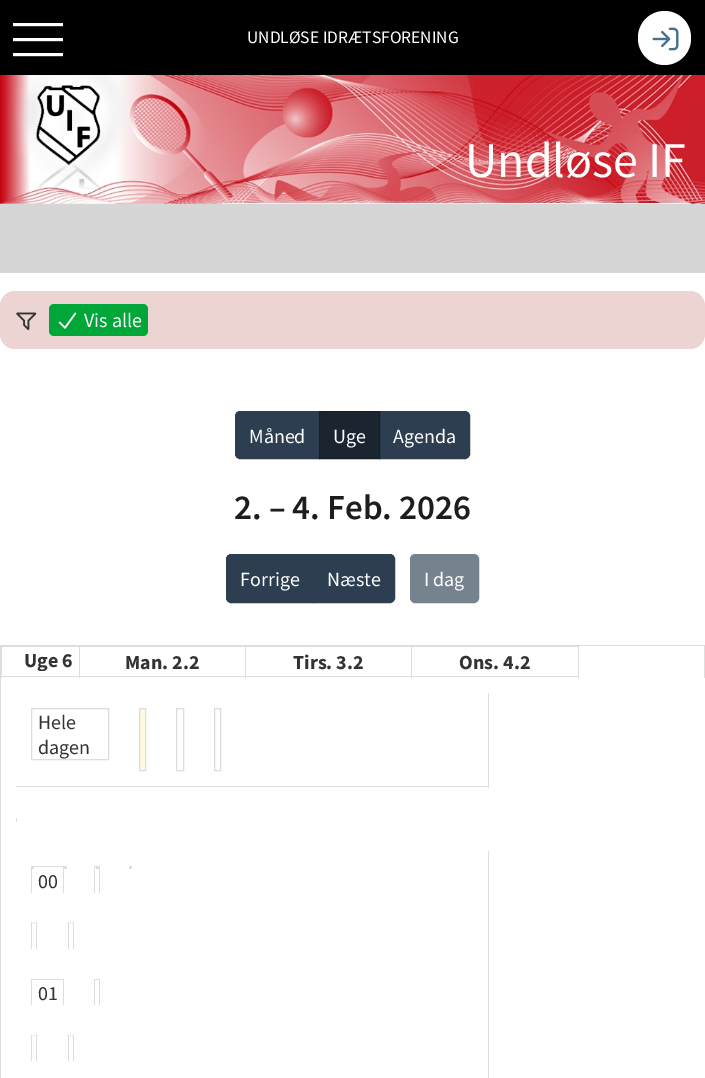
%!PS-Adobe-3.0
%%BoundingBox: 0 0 705 1078
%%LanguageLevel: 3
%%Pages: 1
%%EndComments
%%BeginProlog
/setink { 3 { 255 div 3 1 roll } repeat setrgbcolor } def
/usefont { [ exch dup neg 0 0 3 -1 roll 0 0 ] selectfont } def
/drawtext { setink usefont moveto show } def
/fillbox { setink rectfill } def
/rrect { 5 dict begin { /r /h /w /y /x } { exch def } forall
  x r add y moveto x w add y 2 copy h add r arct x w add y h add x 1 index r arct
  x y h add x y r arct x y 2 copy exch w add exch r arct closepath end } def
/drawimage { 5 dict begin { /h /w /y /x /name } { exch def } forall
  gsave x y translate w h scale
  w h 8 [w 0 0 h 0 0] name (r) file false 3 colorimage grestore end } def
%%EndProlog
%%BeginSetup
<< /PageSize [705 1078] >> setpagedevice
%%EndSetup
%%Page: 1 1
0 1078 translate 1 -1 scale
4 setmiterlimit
0 0 705 1078 214 214 214 fillbox
0 0 705 75 0 0 0 fillbox
51 51 51 setink
13 25 moveto 13 27 lineto 63 27 lineto 63 24 lineto 62 24 lineto 62 25 lineto closepath fill
13 23 50 3 255 255 255 fillbox
51 51 51 setink
13 40 moveto 13 42 lineto 63 42 lineto 63 39 lineto 62 39 lineto 62 40 lineto closepath fill
13 38 50 3 255 255 255 fillbox
51 51 51 setink
13 55 moveto 13 57 lineto 63 57 lineto 63 54 lineto 62 54 lineto 62 55 lineto closepath fill
13 53 50 3 255 255 255 fillbox
(UNDLØSE IDRÆTSFORENING) 247 43 /SourceSansPro-Regular 17.5 255 255 255 drawtext
638 11 53 54 26.5 rrect fill
(assets/img1.rgb) 652 27 27 24 drawimage
(assets/img2.rgb) 0 75 705 129 drawimage
(Undløse IF) 465 177 /SourceSansPro-Regular 50 255 255 255 drawtext
0 273 705 805 255 255 255 fillbox
236 212 210 setink
0 291 705 58 15 rrect fill
(assets/img3.rgb) 16 312 21 18 drawimage
0 166 55 setink
49 304 99 32 5 rrect fill
(assets/img4.rgb) 58 312 19 17 drawimage
(Vis alle) 84 327 /SourceSansPro-Regular 20 255 255 255 drawtext
44 62 80 setink
240 411.5 moveto 319.5 411.5 lineto 319.5 458.5 lineto 240 458.5 lineto 237.5 458.5 235.5 456.5 235.5 454 curveto 235.5 416 lineto 235.5 413.5 237.5 411.5 240 411.5 curveto closepath gsave fill grestore
stroke
(Måned) 249 443 /SourceSansPro-Regular 20 255 255 255 drawtext
44 62 80 setink
379.5 411.5 moveto 465 411.5 lineto 467.5 411.5 469.5 413.5 469.5 416 curveto 469.5 454 lineto 469.5 456.5 467.5 458.5 465 458.5 curveto 379.5 458.5 lineto closepath gsave fill grestore
stroke
26 37 47 setink
319.5 411.5 moveto 379.5 411.5 lineto 379.5 458.5 lineto 319.5 458.5 lineto closepath gsave fill grestore
21 30 39 setink
stroke
(Uge) 333 443 /SourceSansPro-Regular 20 255 255 255 drawtext
(Agenda) 393 443 /SourceSansPro-Regular 20 255 255 255 drawtext
(2. – 4. Feb. 2026) 234 519 /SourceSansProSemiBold-SemiBold 35 29 29 29 drawtext
44 62 80 setink
231 554.5 moveto 313.5 554.5 lineto 313.5 602.5 lineto 231 602.5 lineto 228.5 602.5 226.5 600.5 226.5 598 curveto 226.5 559 lineto 226.5 556.5 228.5 554.5 231 554.5 curveto closepath gsave fill grestore
stroke
(Forrige) 240 586 /SourceSansPro-Regular 20 255 255 255 drawtext
44 62 80 setink
313.5 554.5 moveto 390 554.5 lineto 392.5 554.5 394.5 556.5 394.5 559 curveto 394.5 598 lineto 394.5 600.5 392.5 602.5 390 602.5 curveto 313.5 602.5 lineto closepath gsave fill grestore
stroke
(Næste) 327 586 /SourceSansPro-Regular 20 255 255 255 drawtext
118 130 141 setink
410.5 554.5 68 48 4.5 rrect gsave fill grestore
stroke
(I dag) 424 586 /SourceSansPro-Regular 20 255 255 255 drawtext
0 645 705 1 221 221 221 fillbox
0 645 1 433 221 221 221 fillbox
704 646 1 32 221 221 221 fillbox
411 646 168 1 221 221 221 fillbox
578 646 1 32 221 221 221 fillbox
411 676 168 1 221 221 221 fillbox
411 646 1 32 221 221 221 fillbox
245 646 168 1 221 221 221 fillbox
245 676 168 1 221 221 221 fillbox
245 646 1 32 221 221 221 fillbox
79 646 167 1 221 221 221 fillbox
79 676 167 1 221 221 221 fillbox
79 646 1 32 221 221 221 fillbox
1 646 79 1 221 221 221 fillbox
1 676 79 1 221 221 221 fillbox
1 646 1 32 221 221 221 fillbox
gsave
1 646 78 25 rectclip
(Uge 6) 24 667 /SourceSansPro-Bold 20 51 51 51 drawtext
grestore
(Man. 2.2) 125 669 /SourceSansPro-Bold 20 51 51 51 drawtext
(Tirs. 3.2) 293 669 /SourceSansPro-Bold 20 51 51 51 drawtext
(Ons. 4.2) 459 669 /SourceSansPro-Bold 20 51 51 51 drawtext
488 693 1 95 221 221 221 fillbox
16 786 473 1 221 221 221 fillbox
31.5 708.5 77 51 rectstroke
(Hele) 38 729 /SourceSansPro-Regular 20 51 51 51 drawtext
(dagen) 38 754 /SourceSansPro-Regular 20 51 51 51 drawtext
255 250 223 setink
139.5 708.5 moveto 145.5 708.5 lineto 145.5 770.5 lineto 139.5 770.5 lineto closepath gsave fill grestore
221 221 221 setink
stroke
176.5 708.5 7 62 rectstroke
214.5 708.5 6 62 rectstroke
16 818 1 4 221 221 221 fillbox
488 851 1 227 221 221 221 fillbox
31 867 3 2 221 221 221 fillbox
64 866 3 3 221 221 221 fillbox
96 867 3 2 221 221 221 fillbox
129 866 3 3 221 221 221 fillbox
31 866 33 1 221 221 221 fillbox
63 866 1 27 221 221 221 fillbox
31 866 1 27 221 221 221 fillbox
(00) 38 888 /SourceSansPro-Regular 20 51 51 51 drawtext
94 866 6 1 221 221 221 fillbox
99 866 1 27 221 221 221 fillbox
94 866 1 27 221 221 221 fillbox
1.2 setlinewidth
31 923 moveto 32.5 923 lineto 34 923 moveto 35 923 lineto 36.5 923 moveto 37.5 923 lineto stroke
36 923 1 26 221 221 221 fillbox
31 923 1 26 221 221 221 fillbox
67.5 923 moveto 69 923 lineto 70 923 moveto 71 923 lineto 72.5 923 moveto 74 923 lineto stroke
73 923 1 26 221 221 221 fillbox
68 923 1 26 221 221 221 fillbox
31 979 33 1 221 221 221 fillbox
63 979 1 26 221 221 221 fillbox
31 979 1 26 221 221 221 fillbox
(01) 38 1000 /SourceSansPro-Regular 20 51 51 51 drawtext
94 979 6 1 221 221 221 fillbox
99 979 1 26 221 221 221 fillbox
94 979 1 26 221 221 221 fillbox
31 1035.5 moveto 32.5 1035.5 lineto 34 1035.5 moveto 35 1035.5 lineto 36.5 1035.5 moveto 37.5 1035.5 lineto stroke
36 1035 1 26 221 221 221 fillbox
31 1035 1 26 221 221 221 fillbox
67.5 1035.5 moveto 69 1035.5 lineto 70 1035.5 moveto 71 1035.5 lineto 72.5 1035.5 moveto 74 1035.5 lineto stroke
73 1035 1 26 221 221 221 fillbox
68 1035 1 26 221 221 221 fillbox
showpage
%%EOF
